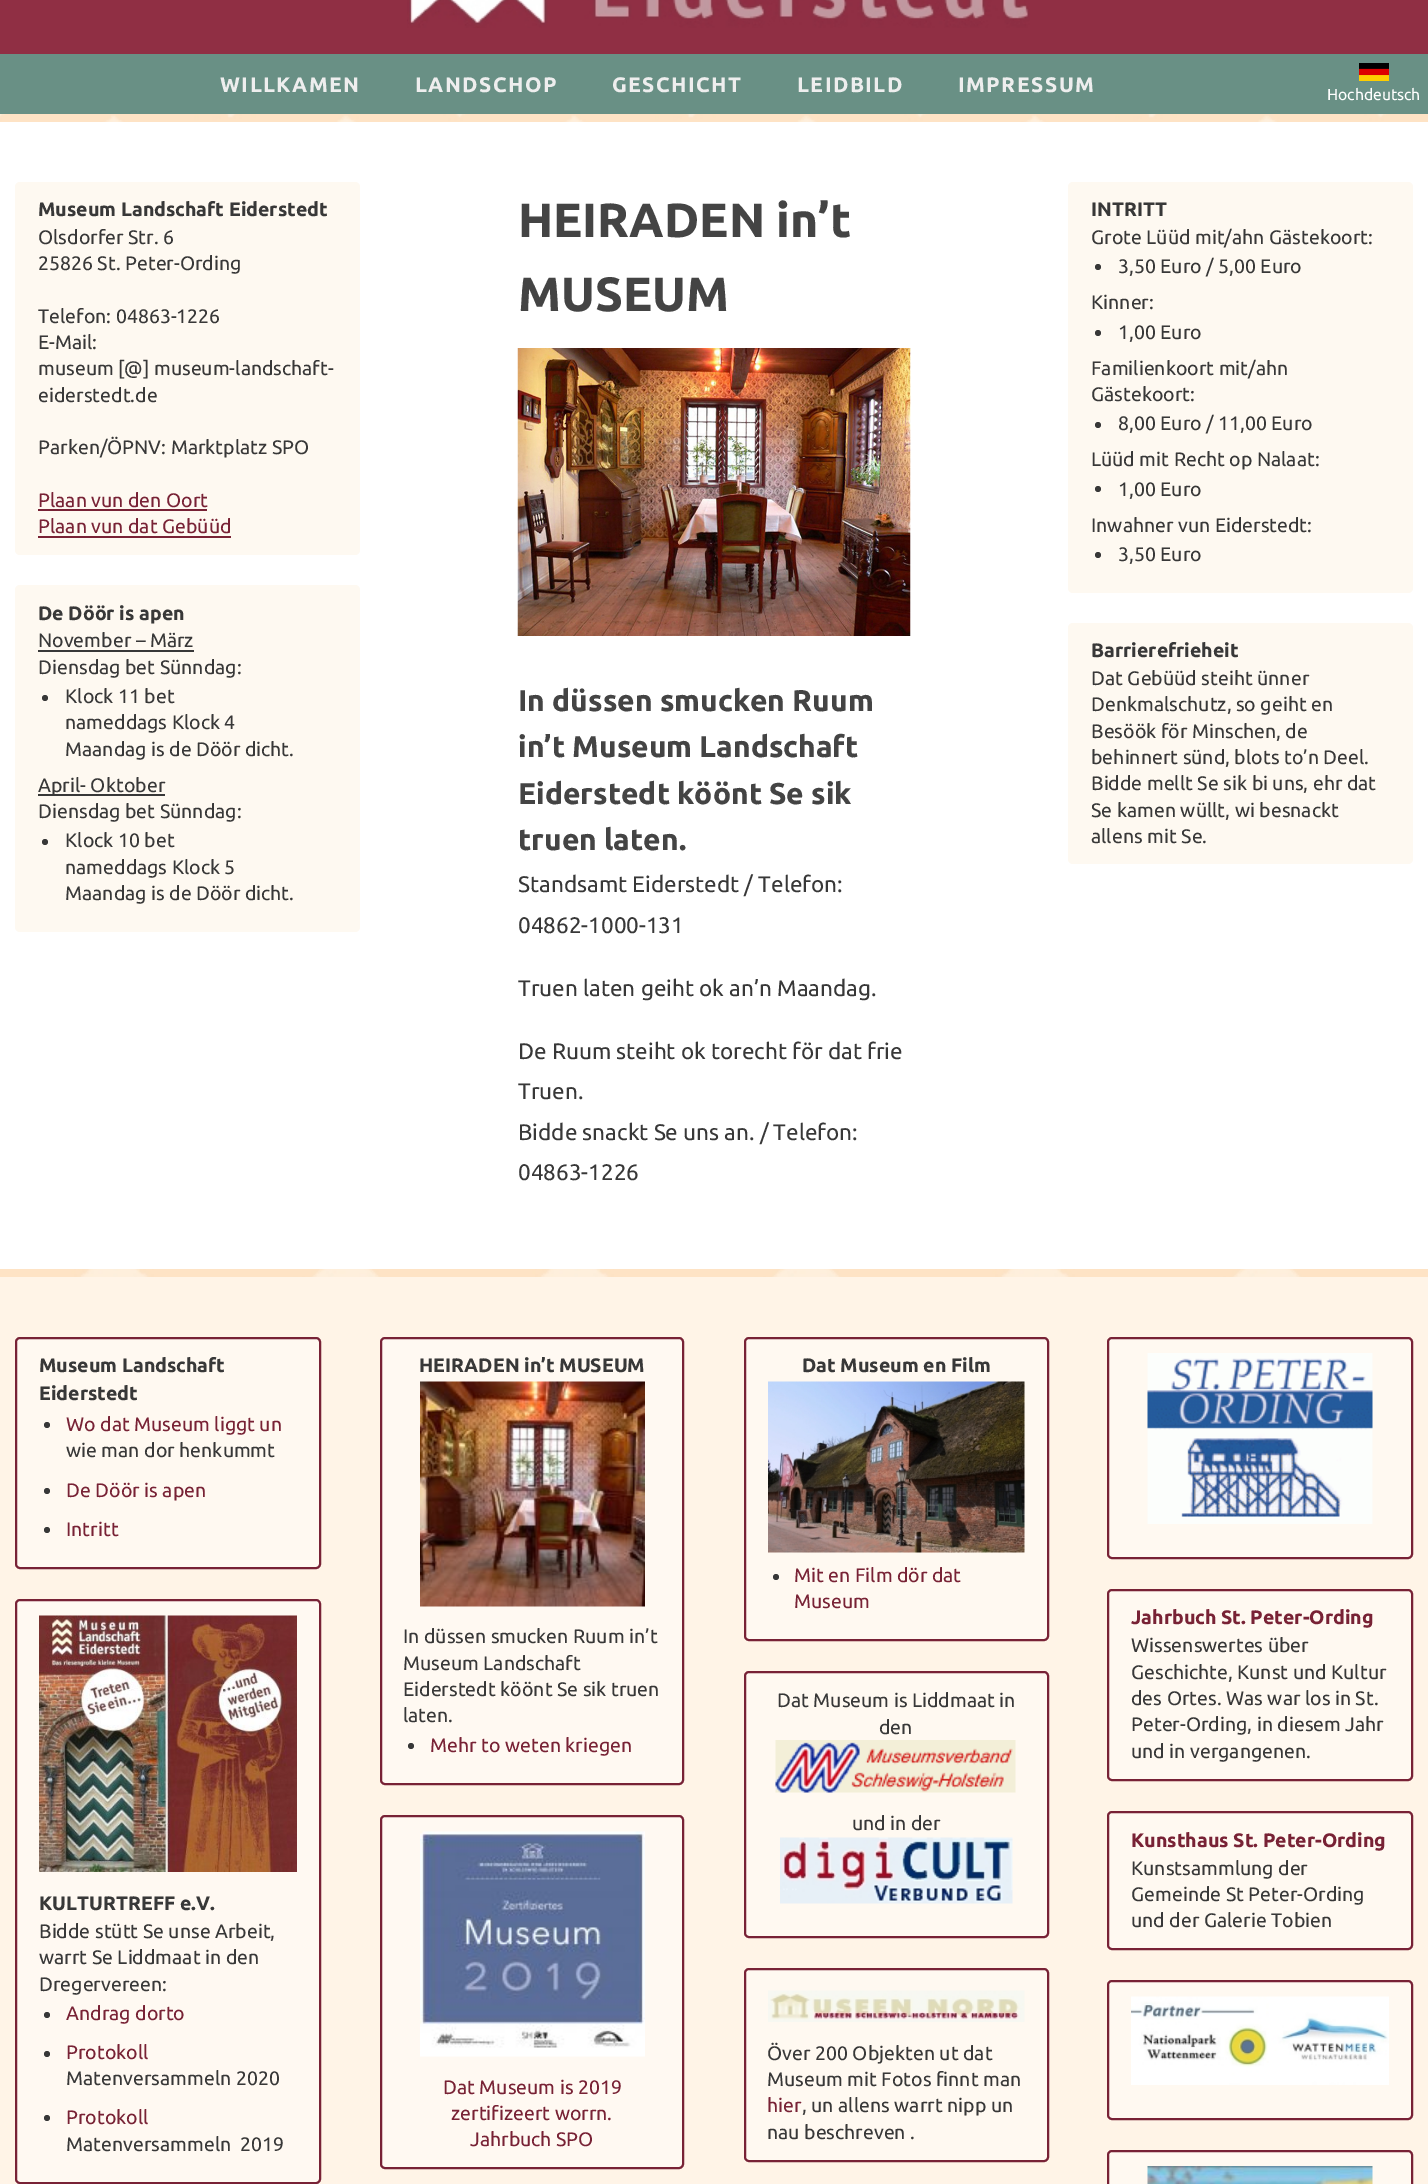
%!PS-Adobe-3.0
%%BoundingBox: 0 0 1428 2184
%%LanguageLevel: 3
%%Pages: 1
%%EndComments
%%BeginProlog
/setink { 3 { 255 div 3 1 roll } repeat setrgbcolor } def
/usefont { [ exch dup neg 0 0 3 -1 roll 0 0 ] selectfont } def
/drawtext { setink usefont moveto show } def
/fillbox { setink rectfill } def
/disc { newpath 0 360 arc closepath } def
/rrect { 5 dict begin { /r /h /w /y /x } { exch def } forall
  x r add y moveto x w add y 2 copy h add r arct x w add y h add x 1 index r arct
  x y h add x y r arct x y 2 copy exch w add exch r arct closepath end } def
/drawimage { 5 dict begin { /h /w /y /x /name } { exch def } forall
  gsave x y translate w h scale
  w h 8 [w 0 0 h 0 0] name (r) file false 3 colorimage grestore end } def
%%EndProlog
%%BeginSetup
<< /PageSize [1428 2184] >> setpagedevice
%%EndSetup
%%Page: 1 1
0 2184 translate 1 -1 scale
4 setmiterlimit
0 0 1428 2184 255 255 255 fillbox
(assets/img1.rgb) 0 114 1428 1163 drawimage
0 0 1428 54 144 47 68 fillbox
(assets/img2.rgb) 407 0 623 28 drawimage
0 54 1428 60 105 144 133 fillbox
/Ubuntu-Bold 21 usefont
238 238 238 setink
220 92 moveto 1.5 0 (WILLKAMEN) ashow
415 92 moveto 1.5 0 (LANDSCHOP) ashow
612 92 moveto 1.5 0 (GESCHICHT) ashow
797 92 moveto 1.5 0 (LEIDBILD) ashow
958 92 moveto 1.5 0 (IMPRESSUM) ashow
(assets/img3.rgb) 1359 63 30 18 drawimage
(Hochdeutsch) 1327 100 /Ubuntu-Regular 15.75 255 255 255 drawtext
0 122 1428 1147 255 255 255 fillbox
254 249 241 setink
15 182 345 373 5 rrect fill
(Museum Landschaft Eiderstedt) 38 216 /Ubuntu-Bold 19.5 56 56 56 drawtext
(Olsdorfer Str. 6) 38 244 /Ubuntu-Regular 19.5 56 56 56 drawtext
(25826 St. Peter-Ording) 38 270 /Ubuntu-Regular 19.5 56 56 56 drawtext
(Telefon: 04863-1226) 38 323 /Ubuntu-Regular 19.5 56 56 56 drawtext
(E-Mail:) 38 349 /Ubuntu-Regular 19.5 56 56 56 drawtext
(museum [@] museum-landschaft-) 38 375 /Ubuntu-Regular 19.5 56 56 56 drawtext
(eiderstedt.de) 38 402 /Ubuntu-Regular 19.5 56 56 56 drawtext
(Parken/ÖPNV: Marktplatz SPO) 38 454 /Ubuntu-Regular 19.5 56 56 56 drawtext
(Plaan vun den Oort) 38 507 /Ubuntu-Regular 19.5 120 34 53 drawtext
38 509 169 2 120 34 53 fillbox
(Plaan vun dat Gebüüd) 38 533 /Ubuntu-Regular 19.5 120 34 53 drawtext
38 536 193 2 120 34 53 fillbox
254 249 241 setink
15 585 345 347 5 rrect fill
(De Döör is apen) 38 620 /Ubuntu-Bold 19.5 56 56 56 drawtext
(November – März) 38 647 /Ubuntu-Regular 19.5 56 56 56 drawtext
38 650 156 2 56 56 56 fillbox
(Diensdag bet Sünndag:) 38 674 /Ubuntu-Regular 19.5 56 56 56 drawtext
45 698 3 disc fill
(Klock 11 bet) 65 703 /Ubuntu-Regular 19.5 56 56 56 drawtext
(nameddags Klock 4) 65 729 /Ubuntu-Regular 19.5 56 56 56 drawtext
(Maandag is de Döör dicht.) 65 756 /Ubuntu-Regular 19.5 56 56 56 drawtext
38 794 127 2 56 56 56 fillbox
(April- Oktober) 38 792 /Ubuntu-Regular 19.5 56 56 56 drawtext
(Diensdag bet Sünndag:) 38 818 /Ubuntu-Regular 19.5 56 56 56 drawtext
45 842 3 disc fill
(Klock 10 bet) 65 847 /Ubuntu-Regular 19.5 56 56 56 drawtext
(nameddags Klock 5) 65 874 /Ubuntu-Regular 19.5 56 56 56 drawtext
(Maandag is de Döör dicht.) 65 900 /Ubuntu-Regular 19.5 56 56 56 drawtext
(HEIRADEN in’t) 518 237 /Ubuntu-Bold 48 68 68 68 drawtext
(MUSEUM) 518 311 /Ubuntu-Bold 48 68 68 68 drawtext
(assets/img4.rgb) 517 348 394 288 drawimage
(In düssen smucken Ruum) 518 711 /Ubuntu-Bold 30 68 68 68 drawtext
(in’t Museum Landschaft) 518 757 /Ubuntu-Bold 30 68 68 68 drawtext
(Eiderstedt köönt Se sik) 518 804 /Ubuntu-Bold 30 68 68 68 drawtext
(truen laten.) 518 850 /Ubuntu-Bold 30 68 68 68 drawtext
(Standsamt Eiderstedt / Telefon:) 518 892 /Ubuntu-Regular 22.5 56 56 56 drawtext
(04862-1000-131) 518 933 /Ubuntu-Regular 22.5 56 56 56 drawtext
(Truen laten geiht ok an’n Maandag.) 518 996 /Ubuntu-Regular 22.5 56 56 56 drawtext
(De Ruum steiht ok torecht för dat frie) 518 1059 /Ubuntu-Regular 22.5 56 56 56 drawtext
(Truen.) 518 1099 /Ubuntu-Regular 22.5 56 56 56 drawtext
(Bidde snackt Se uns an. / Telefon:) 518 1140 /Ubuntu-Regular 22.5 56 56 56 drawtext
(04863-1226) 518 1180 /Ubuntu-Regular 22.5 56 56 56 drawtext
254 249 241 setink
1068 182 345 411 5 rrect fill
(INTRITT) 1091 216 /Ubuntu-Bold 19.5 56 56 56 drawtext
(Grote Lüüd mit/ahn Gästekoort:) 1091 244 /Ubuntu-Regular 19.5 56 56 56 drawtext
1098 267 3 disc fill
(3,50 Euro / 5,00 Euro) 1118 273 /Ubuntu-Regular 19.5 56 56 56 drawtext
(Kinner:) 1091 309 /Ubuntu-Regular 19.5 56 56 56 drawtext
1098 333 3 disc fill
(1,00 Euro) 1118 339 /Ubuntu-Regular 19.5 56 56 56 drawtext
(Familienkoort mit/ahn) 1091 375 /Ubuntu-Regular 19.5 56 56 56 drawtext
(Gästekoort:) 1091 401 /Ubuntu-Regular 19.5 56 56 56 drawtext
1098 425 3 disc fill
(8,00 Euro / 11,00 Euro) 1118 430 /Ubuntu-Regular 19.5 56 56 56 drawtext
(Lüüd mit Recht op Nalaat:) 1091 466 /Ubuntu-Regular 19.5 56 56 56 drawtext
1098 489 3 disc fill
(1,00 Euro) 1118 496 /Ubuntu-Regular 19.5 56 56 56 drawtext
(Inwahner vun Eiderstedt:) 1091 532 /Ubuntu-Regular 19.5 56 56 56 drawtext
1098 555 3 disc fill
(3,50 Euro) 1118 561 /Ubuntu-Regular 19.5 56 56 56 drawtext
254 249 241 setink
1068 623 345 241 5 rrect fill
(Barrierefrieheit) 1091 657 /Ubuntu-Bold 19.5 56 56 56 drawtext
(Dat Gebüüd steiht ünner) 1091 685 /Ubuntu-Regular 19.5 56 56 56 drawtext
(Denkmalschutz, so geiht en) 1091 711 /Ubuntu-Regular 19.5 56 56 56 drawtext
(Besöök för Minschen, de) 1091 738 /Ubuntu-Regular 19.5 56 56 56 drawtext
(behinnert sünd, blots to’n Deel.) 1091 764 /Ubuntu-Regular 19.5 56 56 56 drawtext
(Bidde mellt Se sik bi uns, ehr dat) 1091 790 /Ubuntu-Regular 19.5 56 56 56 drawtext
(Se kamen wüllt, wi besnackt) 1091 817 /Ubuntu-Regular 19.5 56 56 56 drawtext
(allens mit Se.) 1091 843 /Ubuntu-Regular 19.5 56 56 56 drawtext
0 1277 1428 907 255 244 231 fillbox
255 249 241 setink
16 1338 304 230 4 rrect gsave fill grestore
120 34 54 setink
2 setlinewidth
stroke
(Museum Landschaft) 39 1372 /Ubuntu-Bold 19.5 56 56 56 drawtext
(Eiderstedt) 39 1400 /Ubuntu-Bold 19.5 56 56 56 drawtext
47 1425 3 disc fill
(Wo dat Museum liggt un) 66 1431 /Ubuntu-Regular 19.5 120 34 53 drawtext
(wie man dor henkummt) 66 1457 /Ubuntu-Regular 19.5 56 56 56 drawtext
47 1491 3 disc fill
(De Döör is apen) 66 1497 /Ubuntu-Regular 19.5 120 34 53 drawtext
56 56 56 setink
47 1530 3 disc fill
(Intritt) 66 1536 /Ubuntu-Regular 19.5 120 34 53 drawtext
255 249 242 setink
16 1600 304 583 4 rrect gsave fill grestore
120 34 54 setink
stroke
(assets/img5.rgb) 39 1615 258 257 drawimage
(KULTURTREFF e.V.) 39 1910 /Ubuntu-Bold 19.5 56 56 56 drawtext
(Bidde stütt Se unse Arbeit,) 39 1938 /Ubuntu-Regular 19.5 56 56 56 drawtext
(warrt Se Liddmaat in den) 39 1964 /Ubuntu-Regular 19.5 56 56 56 drawtext
(Dregervereen:) 39 1991 /Ubuntu-Regular 19.5 56 56 56 drawtext
47 2015 3 disc fill
(Andrag dorto) 66 2020 /Ubuntu-Regular 19.5 120 34 53 drawtext
56 56 56 setink
47 2054 3 disc fill
(Protokoll) 66 2059 /Ubuntu-Regular 19.5 120 34 53 drawtext
(Matenversammeln 2020) 66 2085 /Ubuntu-Regular 19.5 56 56 56 drawtext
47 2118 3 disc fill
(Protokoll) 66 2124 /Ubuntu-Regular 19.5 120 34 53 drawtext
(Matenversammeln  2019) 66 2151 /Ubuntu-Regular 19.5 56 56 56 drawtext
255 249 242 setink
381 1338 302 446 4 rrect gsave fill grestore
120 34 54 setink
stroke
(HEIRADEN in’t MUSEUM) 419 1372 /Ubuntu-Bold 19.5 56 56 56 drawtext
(assets/img6.rgb) 420 1381 225 226 drawimage
(In düssen smucken Ruum in’t) 403 1643 /Ubuntu-Regular 19.5 56 56 56 drawtext
(Museum Landschaft) 403 1670 /Ubuntu-Regular 19.5 56 56 56 drawtext
(Eiderstedt köönt Se sik truen) 403 1696 /Ubuntu-Regular 19.5 56 56 56 drawtext
(laten.) 403 1722 /Ubuntu-Regular 19.5 56 56 56 drawtext
411 1746 3 disc fill
(Mehr to weten kriegen) 430 1752 /Ubuntu-Regular 19.5 120 34 53 drawtext
255 249 242 setink
381 1816 302 352 4 rrect gsave fill grestore
120 34 54 setink
stroke
(assets/img7.rgb) 420 1831 225 226 drawimage
(Dat Museum is 2019) 443 2094 /Ubuntu-Regular 19.5 120 34 53 drawtext
(zertifizeert worrn.) 451 2120 /Ubuntu-Regular 19.5 120 34 53 drawtext
(Jahrbuch SPO) 470 2146 /Ubuntu-Regular 19.5 120 34 53 drawtext
255 249 241 setink
745 1338 303 302 4 rrect gsave fill grestore
120 34 54 setink
stroke
(Dat Museum en Film) 802 1372 /Ubuntu-Bold 19.5 56 56 56 drawtext
(assets/img8.rgb) 768 1381 257 172 drawimage
776 1577 3 disc fill
(Mit en Film dör dat) 794 1582 /Ubuntu-Regular 19.5 120 34 53 drawtext
(Museum) 794 1608 /Ubuntu-Regular 19.5 120 34 53 drawtext
255 249 241 setink
745 1672 303 265 4 rrect gsave fill grestore
120 34 54 setink
stroke
(Dat Museum is Liddmaat in) 777 1707 /Ubuntu-Regular 19.5 56 56 56 drawtext
(den) 879 1734 /Ubuntu-Regular 19.5 56 56 56 drawtext
(assets/img9.rgb) 775 1740 241 53 drawimage
(und in der) 852 1830 /Ubuntu-Regular 19.5 56 56 56 drawtext
(assets/img10.rgb) 780 1837 233 67 drawimage
255 249 241 setink
745 1969 303 192 4 rrect gsave fill grestore
120 34 54 setink
stroke
(assets/img11.rgb) 768 1990 257 32 drawimage
(Över 200 Objekten ut dat) 767 2060 /Ubuntu-Regular 19.5 56 56 56 drawtext
(Museum mit Fotos finnt man) 767 2086 /Ubuntu-Regular 19.5 56 56 56 drawtext
(hier) 767 2112 /Ubuntu-Regular 19.5 120 34 53 drawtext
(, un allens warrt nipp un) 802 2112 /Ubuntu-Regular 19.5 56 56 56 drawtext
(nau beschreven .) 767 2139 /Ubuntu-Regular 19.5 56 56 56 drawtext
255 249 241 setink
1108 1338 304 220 4 rrect gsave fill grestore
120 34 54 setink
stroke
(assets/img12.rgb) 1147 1353 226 171 drawimage
255 249 241 setink
1108 1590 304 190 4 rrect gsave fill grestore
120 34 54 setink
stroke
(Jahrbuch St. Peter-Ording) 1131 1624 /Ubuntu-Bold 19.5 120 34 53 drawtext
(Wissenswertes über) 1131 1652 /Ubuntu-Regular 19.5 56 56 56 drawtext
(Geschichte, Kunst und Kultur) 1131 1679 /Ubuntu-Regular 19.5 56 56 56 drawtext
(des Ortes. Was war los in St.) 1131 1705 /Ubuntu-Regular 19.5 56 56 56 drawtext
(Peter-Ording, in diesem Jahr) 1131 1731 /Ubuntu-Regular 19.5 56 56 56 drawtext
(und in vergangenen.) 1131 1758 /Ubuntu-Regular 19.5 56 56 56 drawtext
255 249 241 setink
1108 1812 304 137 4 rrect gsave fill grestore
120 34 54 setink
stroke
(Kunsthaus St. Peter-Ording) 1131 1847 /Ubuntu-Bold 19.5 120 34 53 drawtext
(Kunstsammlung der) 1131 1875 /Ubuntu-Regular 19.5 56 56 56 drawtext
(Gemeinde St Peter-Ording) 1131 1901 /Ubuntu-Regular 19.5 56 56 56 drawtext
(und der Galerie Tobien) 1131 1927 /Ubuntu-Regular 19.5 56 56 56 drawtext
255 249 241 setink
1108 1981 304 138 4 rrect gsave fill grestore
120 34 54 setink
stroke
(assets/img13.rgb) 1131 1996 258 89 drawimage
255 249 241 setink
1108 2151 304 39 4 rrect gsave fill grestore
120 34 54 setink
stroke
(assets/img14.rgb) 1147 2166 226 18 drawimage
showpage
%%EOF
